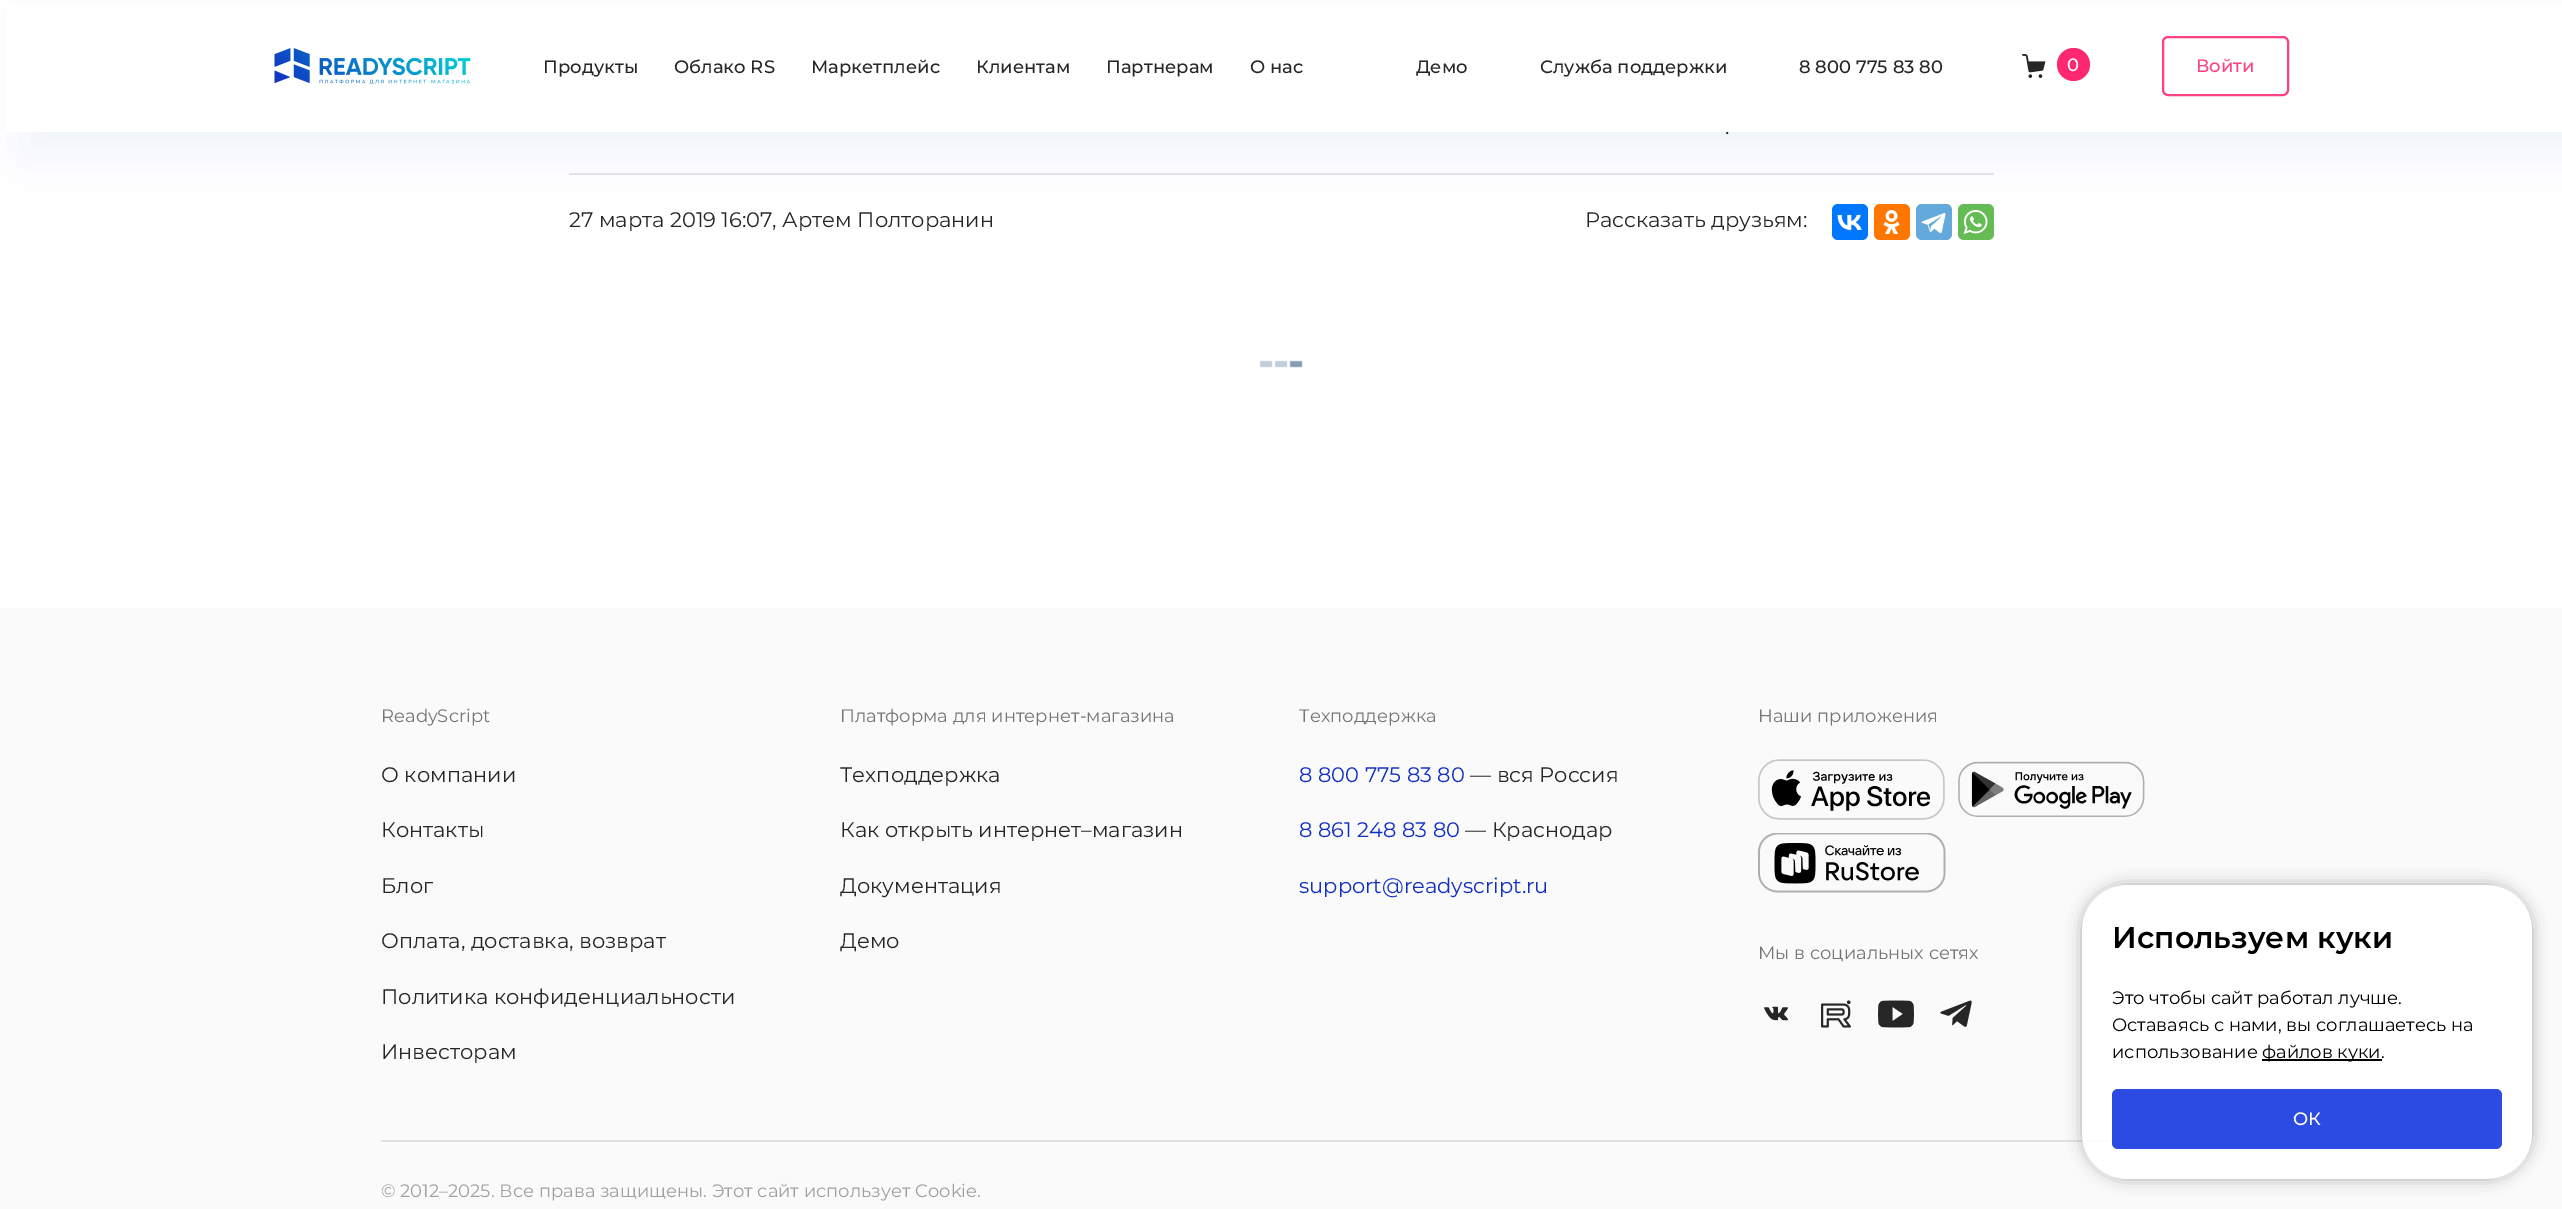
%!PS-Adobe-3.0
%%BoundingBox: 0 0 2562 1209
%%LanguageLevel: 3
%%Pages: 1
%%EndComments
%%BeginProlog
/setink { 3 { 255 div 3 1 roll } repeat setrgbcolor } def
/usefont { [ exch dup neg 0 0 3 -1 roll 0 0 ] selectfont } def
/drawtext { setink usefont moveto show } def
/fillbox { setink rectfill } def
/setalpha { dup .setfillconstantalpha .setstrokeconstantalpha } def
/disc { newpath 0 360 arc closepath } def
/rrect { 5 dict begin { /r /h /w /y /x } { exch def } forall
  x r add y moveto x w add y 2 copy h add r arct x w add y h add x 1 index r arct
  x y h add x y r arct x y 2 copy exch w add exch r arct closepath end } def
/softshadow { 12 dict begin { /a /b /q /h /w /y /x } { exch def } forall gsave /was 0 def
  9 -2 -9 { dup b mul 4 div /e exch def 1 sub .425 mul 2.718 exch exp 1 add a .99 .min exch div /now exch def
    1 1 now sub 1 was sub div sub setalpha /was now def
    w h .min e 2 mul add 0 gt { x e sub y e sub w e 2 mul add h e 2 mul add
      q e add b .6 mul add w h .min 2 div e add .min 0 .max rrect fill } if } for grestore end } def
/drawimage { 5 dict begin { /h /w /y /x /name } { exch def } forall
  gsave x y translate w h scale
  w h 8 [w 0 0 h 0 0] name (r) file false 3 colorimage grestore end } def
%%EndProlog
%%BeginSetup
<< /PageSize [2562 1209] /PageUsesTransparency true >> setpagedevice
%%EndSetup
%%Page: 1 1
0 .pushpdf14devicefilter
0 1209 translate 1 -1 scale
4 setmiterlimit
0 0 2562 1209 255 255 255 fillbox
569 173 1425 2 229 229 229 fillbox
0 119 255 setink
1832 204 36 36 6 rrect fill
(assets/img3.rgb) 1837 214 25 16 drawimage
255 119 0 setink
1874 204 36 36 6 rrect fill
(assets/img4.rgb) 1883 210 17 24 drawimage
100 169 220 setink
1916 204 36 36 6 rrect fill
(assets/img5.rgb) 1921 213 25 21 drawimage
101 188 84 setink
1958 204 36 36 6 rrect fill
(assets/img6.rgb) 1963 210 25 24 drawimage
17 47 193 setink
24 24 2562 132 0 24 0.05 softshadow
(.) 1725 134 /Montserrat-Regular 21 38 38 38 drawtext
6 5 2556 127 255 255 255 fillbox
(assets/img1.rgb) 274 48 197 36 drawimage
(Продукты) 543 73 /Montserrat-Medium 18 38 38 38 drawtext
(Облако RS) 674 73 /Montserrat-Medium 18 38 38 38 drawtext
(Маркетплейс) 811 73 /Montserrat-Medium 18 38 38 38 drawtext
(Клиентам) 976 73 /Montserrat-Medium 18 38 38 38 drawtext
(Партнерам) 1106 73 /Montserrat-Medium 18 38 38 38 drawtext
(О нас) 1250 73 /Montserrat-Medium 18 38 38 38 drawtext
(Демо) 1416 73 /Montserrat-Medium 18 38 38 38 drawtext
(Служба поддержки) 1540 73 /Montserrat-Medium 18 38 38 38 drawtext
(8 800 775 83 80) 1799 73 /Montserrat-Medium 18 38 38 38 drawtext
(assets/img2.rgb) 2022 54 24 24 drawimage
255 39 112 setink
2073.5 64.5 16.5 disc fill
(0) 2067 71 /Montserrat-Medium 18 255 255 255 drawtext
255 64 129 setink
2 setlinewidth
2163 37 125 58 5 rrect stroke
(Войти) 2196 72 /Montserrat-Medium 18 255 64 129 drawtext
(27 марта 2019 16:07, Артем Полторанин) 569 227 /Montserrat-Regular 21 38 38 38 drawtext
(Рассказать друзьям:) 1585 227 /Montserrat-Regular 21 38 38 38 drawtext
(assets/img7.rgb) 1259 360 44 8 drawimage
0 608 2562 601 250 250 250 fillbox
(ReadyScript) 381 722 /Montserrat-Regular 18 118 118 118 drawtext
(О компании) 381 782 /Montserrat-Regular 21 38 38 38 drawtext
(Контакты) 381 837 /Montserrat-Regular 21 38 38 38 drawtext
(Блог) 381 893 /Montserrat-Regular 21 38 38 38 drawtext
(Оплата, доставка, возврат) 381 948 /Montserrat-Regular 21 38 38 38 drawtext
(Политика конфиденциальности) 381 1004 /Montserrat-Regular 21 38 38 38 drawtext
(Инвесторам) 381 1059 /Montserrat-Regular 21 38 38 38 drawtext
(Платформа для интернет-магазина) 840 722 /Montserrat-Regular 18 118 118 118 drawtext
(Техподдержка) 840 782 /Montserrat-Regular 21 38 38 38 drawtext
(Как открыть интернет–магазин) 840 837 /Montserrat-Regular 21 38 38 38 drawtext
(Документация) 840 893 /Montserrat-Regular 21 38 38 38 drawtext
(Демо) 840 948 /Montserrat-Regular 21 38 38 38 drawtext
(Техподдержка) 1299 722 /Montserrat-Regular 18 118 118 118 drawtext
(8 800 775 83 80) 1299 782 /Montserrat-Regular 21 17 47 193 drawtext
(— вся Россия) 1470 782 /Montserrat-Regular 21 38 38 38 drawtext
(8 861 248 83 80) 1299 837 /Montserrat-Regular 21 17 47 193 drawtext
(— Краснодар) 1465 837 /Montserrat-Regular 21 38 38 38 drawtext
(support@readyscript.ru) 1299 893 /Montserrat-Regular 21 17 47 193 drawtext
(Наши приложения) 1758 722 /Montserrat-Regular 18 118 118 118 drawtext
(assets/img8.rgb) 1758 759 187 61 drawimage
(assets/img9.rgb) 1958 761 187 56 drawimage
(assets/img10.rgb) 1758 833 188 60 drawimage
(Мы в социальных сетях) 1758 959 /Montserrat-Regular 18 118 118 118 drawtext
(assets/img11.rgb) 1764 1006 24 15 drawimage
(assets/img12.rgb) 1821 1000 30 28 drawimage
(assets/img13.rgb) 1878 1000 36 28 drawimage
(assets/img14.rgb) 1940 1000 32 27 drawimage
381 1140 1731 2 224 224 224 fillbox
(© 2012–2025. Все права защищены. Этот сайт использует Cookie.) 381 1197 /Montserrat-Regular 18 160 160 160 drawtext
gsave
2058 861 moveto 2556 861 lineto 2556 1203 lineto 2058 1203 lineto closepath 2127 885 moveto 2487 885 lineto 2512 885 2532 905 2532 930 curveto 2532 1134 lineto 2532 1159 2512 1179 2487 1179 curveto 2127 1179 lineto 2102 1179 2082 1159 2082 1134 curveto 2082 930 lineto 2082 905 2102 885 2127 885 curveto closepath eoclip newpath
170 170 170 setink
2082 885 450 294 45 7.5 1 softshadow
grestore
0.9 setalpha
255 255 255 setink
2082 885 450 294 45 rrect fill
1 setalpha
(Используем куки) 2112 948 /Montserrat-SemiBold 30 0 0 0 drawtext
(Это чтобы сайт работал лучше.) 2112 1004 /Montserrat-Regular 18 0 0 0 drawtext
(Оставаясь с нами, вы соглашаетесь на) 2112 1031 /Montserrat-Regular 18 0 0 0 drawtext
(использование) 2112 1058 /Montserrat-Regular 18 0 0 0 drawtext
2262 1059 120 2 0 0 0 fillbox
(файлов куки.) 2262 1058 /Montserrat-Regular 18 0 0 0 drawtext
44 75 227 setink
2112 1089 390 60 6 rrect fill
(ОК) 2293 1125 /Montserrat-Medium 18 255 255 255 drawtext
.poppdf14devicefilter showpage
%%EOF
